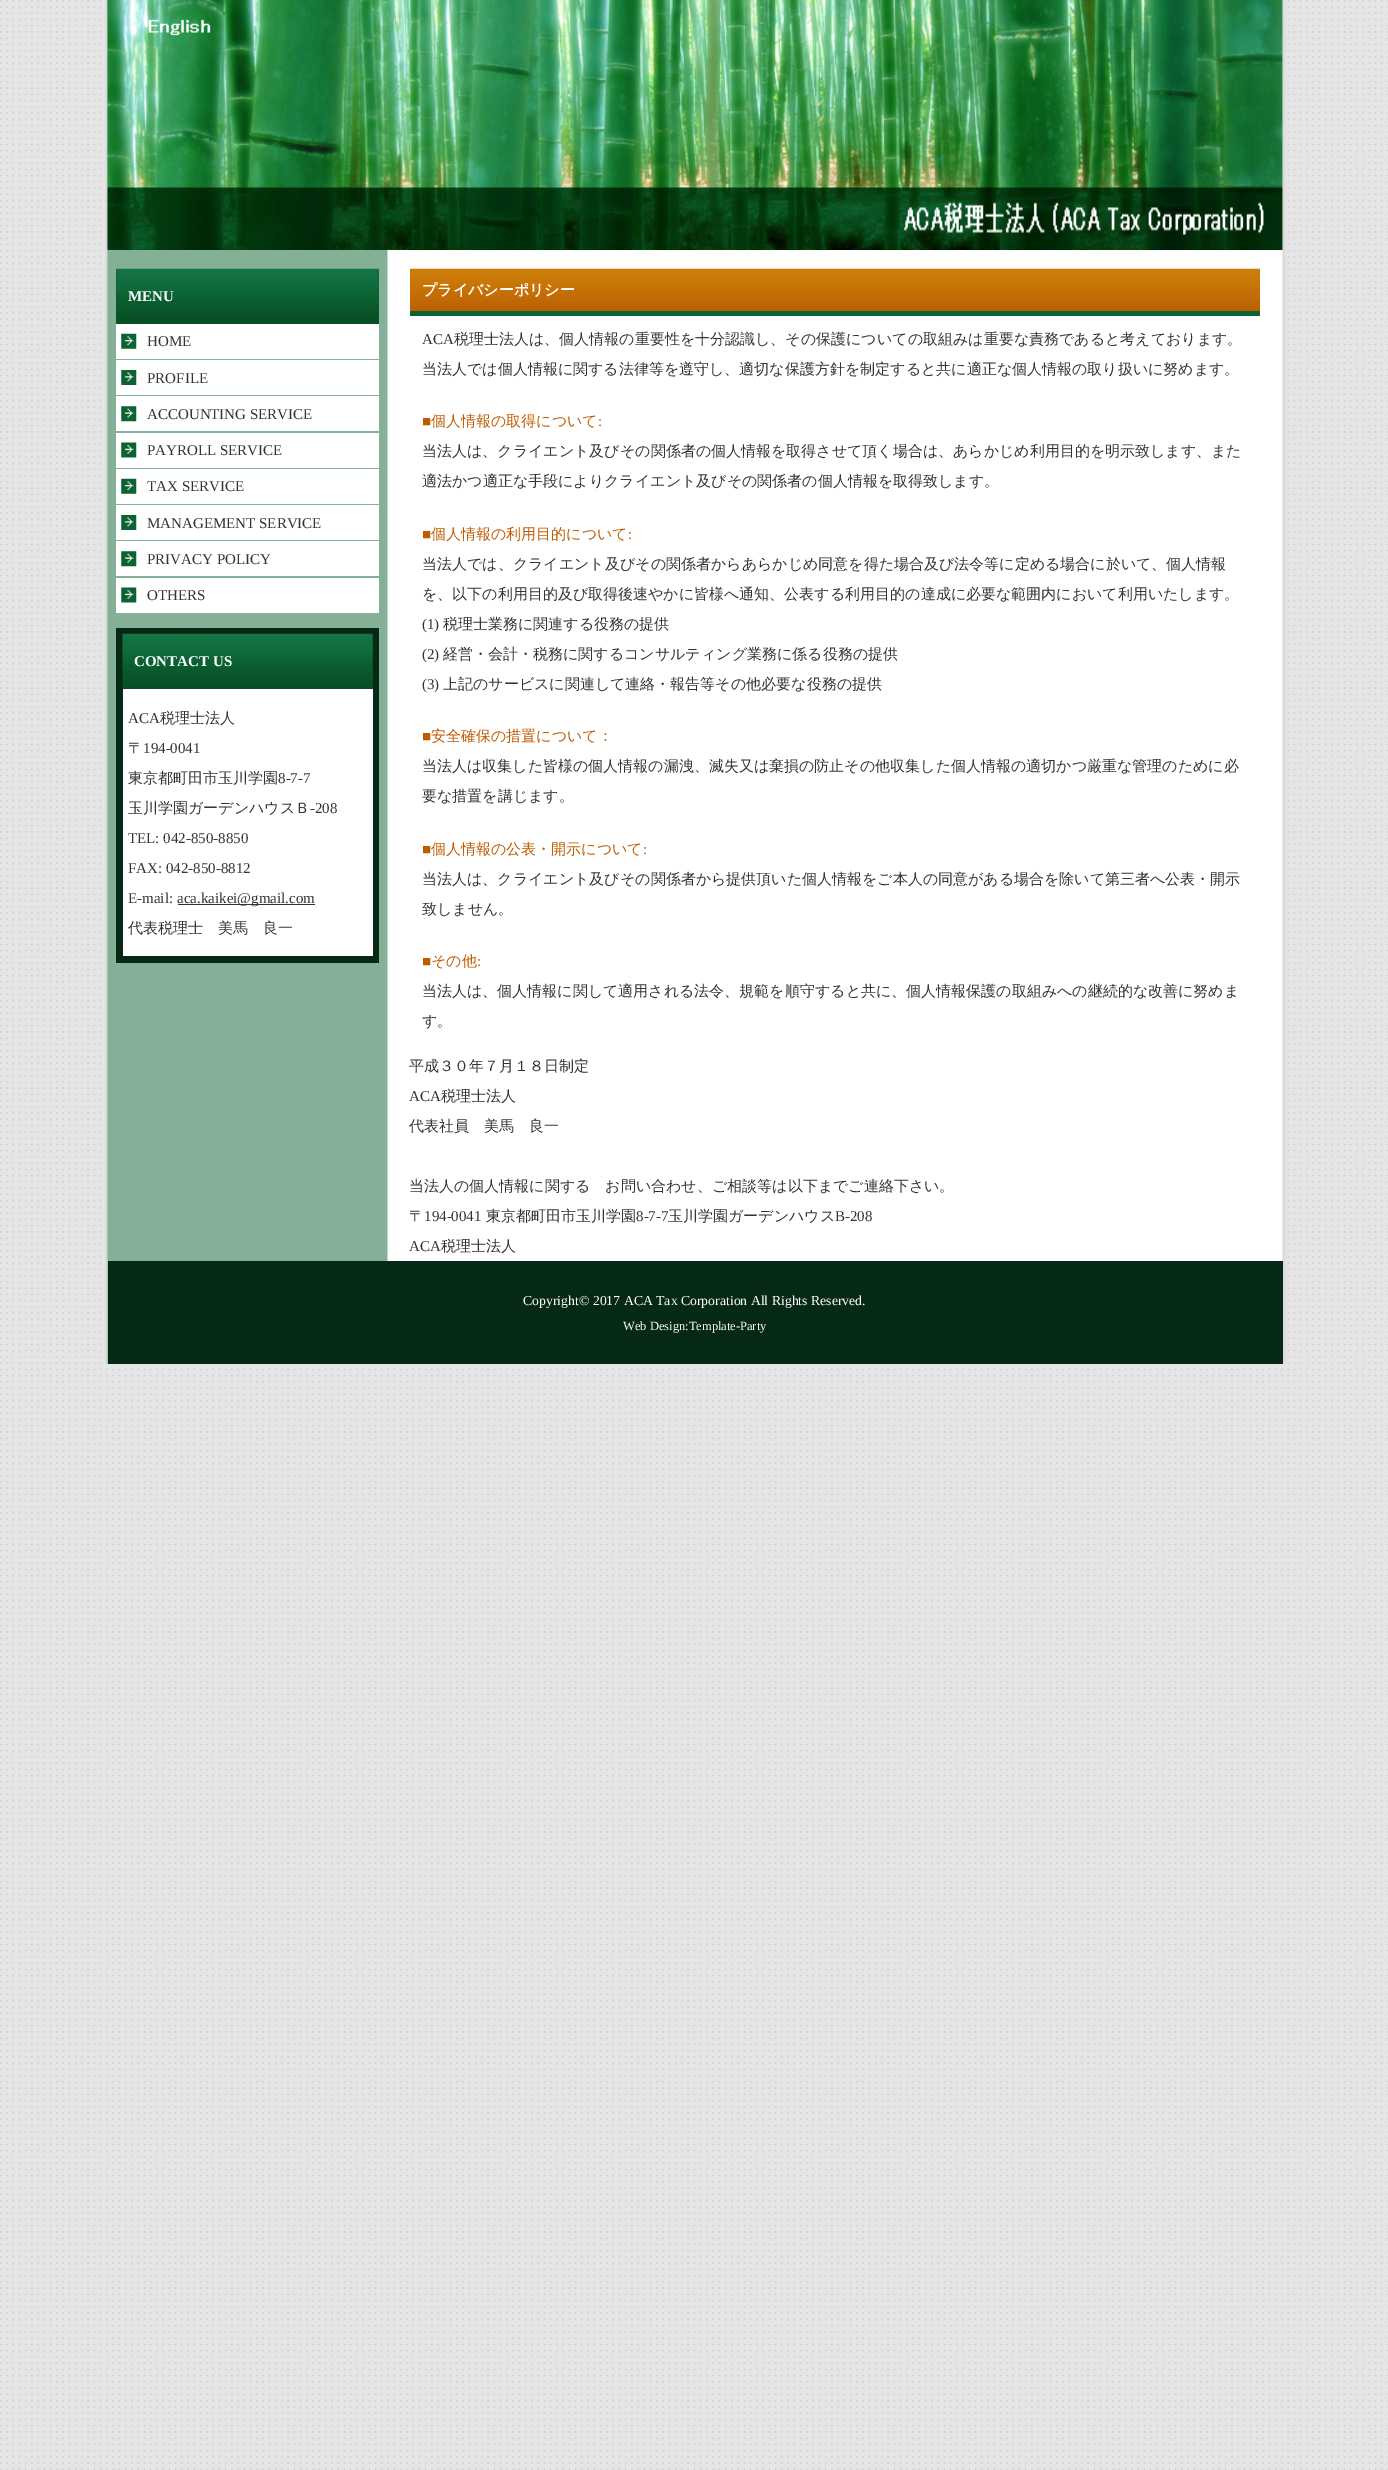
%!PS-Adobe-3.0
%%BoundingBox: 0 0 1388 2470
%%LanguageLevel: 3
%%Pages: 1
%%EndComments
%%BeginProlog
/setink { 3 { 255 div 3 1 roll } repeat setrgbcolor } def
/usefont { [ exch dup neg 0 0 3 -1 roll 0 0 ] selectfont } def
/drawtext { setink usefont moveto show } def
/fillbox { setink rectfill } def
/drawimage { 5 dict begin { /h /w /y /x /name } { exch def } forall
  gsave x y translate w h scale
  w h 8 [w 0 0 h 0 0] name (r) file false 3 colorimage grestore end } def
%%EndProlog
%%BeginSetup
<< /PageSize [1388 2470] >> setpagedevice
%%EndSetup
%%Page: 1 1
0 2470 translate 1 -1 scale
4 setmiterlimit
0 0 1388 2470 255 255 255 fillbox
(assets/img1.rgb) 0 0 1388 2470 drawimage
(assets/img2.rgb) 105 0 1183 1364 drawimage
(assets/img3.rgb) 107 0 1176 250 drawimage
(assets/img4.rgb) 148 19 63 17 drawimage
(assets/img5.rgb) 903 202 361 33 drawimage
116 269 263 55 8 80 38 fillbox
(assets/img6.rgb) 116 268 263 46 drawimage
(MENU) 128 301 /LiberationSerif-Bold 15 255 255 255 drawtext
116 324 263 35 255 255 255 fillbox
(assets/img7.rgb) 121 333 16 16 drawimage
(HOME) 147 346 /LiberationSerif-Regular 15 51 51 51 drawtext
116 360 263 35 255 255 255 fillbox
(assets/img8.rgb) 121 370 16 15 drawimage
(PROFILE) 147 383 /LiberationSerif-Regular 15 51 51 51 drawtext
116 396 263 35 255 255 255 fillbox
(assets/img9.rgb) 121 406 16 16 drawimage
(ACCOUNTING SERVICE) 147 419 /LiberationSerif-Regular 15 51 51 51 drawtext
116 433 263 35 255 255 255 fillbox
(assets/img10.rgb) 121 442 16 16 drawimage
(PAYROLL SERVICE) 147 455 /LiberationSerif-Regular 15 51 51 51 drawtext
116 469 263 35 255 255 255 fillbox
(assets/img7.rgb) 121 478 16 16 drawimage
(TAX SERVICE) 147 491 /LiberationSerif-Regular 15 51 51 51 drawtext
116 505 263 35 255 255 255 fillbox
(assets/img8.rgb) 121 515 16 15 drawimage
(MANAGEMENT SERVICE) 147 528 /LiberationSerif-Regular 15 51 51 51 drawtext
116 541 263 35 255 255 255 fillbox
(assets/img9.rgb) 121 551 16 16 drawimage
(PRIVACY POLICY) 147 564 /LiberationSerif-Regular 15 51 51 51 drawtext
116 578 263 35 255 255 255 fillbox
(assets/img11.rgb) 121 587 16 16 drawimage
(OTHERS) 147 600 /LiberationSerif-Regular 15 51 51 51 drawtext
116 628 263 335 5 41 21 fillbox
123 634 250 55 8 80 38 fillbox
(assets/img12.rgb) 122 633 251 55 drawimage
(CONTACT US) 134 666 /LiberationSerif-Bold 15 255 255 255 drawtext
123 689 250 267 255 255 255 fillbox
(ACA) 128 723 /LiberationSerif-Regular 15 51 51 51 drawtext
(税理士法人) 160 723 /WenQuanYiZenHei-Medium 15 51 51 51 drawtext
(〒) 128 753 /WenQuanYiZenHei-Medium 15 51 51 51 drawtext
(194-0041) 143 753 /LiberationSerif-Regular 15 51 51 51 drawtext
(東京都町田市玉川学園) 128 783 /WenQuanYiZenHei-Medium 15 51 51 51 drawtext
(8-7-7) 278 783 /LiberationSerif-Regular 15 51 51 51 drawtext
(玉川学園ガーデンハウスＢ) 128 813 /WenQuanYiZenHei-Medium 15 51 51 51 drawtext
(-208) 310 813 /LiberationSerif-Regular 15 51 51 51 drawtext
(TEL: 042-850-8850) 128 843 /LiberationSerif-Regular 15 51 51 51 drawtext
(FAX: 042-850-8812) 128 873 /LiberationSerif-Regular 15 51 51 51 drawtext
(E-mail:) 128 903 /LiberationSerif-Regular 15 51 51 51 drawtext
178 904 137 1 51 51 51 fillbox
(aca.kaikei@gmail.com) 177 903 /LiberationSerif-Regular 15 51 51 51 drawtext
(代表税理士　美馬　良一) 128 933 /WenQuanYiZenHei-Medium 15 51 51 51 drawtext
(assets/img13.rgb) 410 268 850 43 drawimage
410 311 850 5 11 98 50 fillbox
(プライバシーポリシー) 422 295 /WenQuanYiZenHei-Bold 15 255 255 255 drawtext
(ACA) 422 344 /LiberationSerif-Regular 15 51 51 51 drawtext
(税理士法人は、個人情報の重要性を十分認識し、その保護についての取組みは重要な責務であると考えております。) 454 344 /WenQuanYiZenHei-Medium 15 51 51 51 drawtext
(当法人では個人情報に関する法律等を遵守し、適切な保護方針を制定すると共に適正な個人情報の取り扱いに努めます。) 422 374 /WenQuanYiZenHei-Medium 15 51 51 51 drawtext
(■) 422 426 /LiberationSerif-Regular 15 190 92 1 drawtext
(個人情報の取得について) 431 426 /WenQuanYiZenHei-Medium 15 190 92 1 drawtext
(:) 598 426 /LiberationSerif-Regular 15 190 92 1 drawtext
(当法人は、クライエント及びその関係者の個人情報を取得させて頂く場合は、あらかじめ利用目的を明示致します、また) 422 456 /WenQuanYiZenHei-Medium 15 51 51 51 drawtext
(適法かつ適正な手段によりクライエント及びその関係者の個人情報を取得致します。) 422 486 /WenQuanYiZenHei-Medium 15 51 51 51 drawtext
(■) 422 539 /LiberationSerif-Regular 15 190 92 1 drawtext
(個人情報の利用目的について) 431 539 /WenQuanYiZenHei-Medium 15 190 92 1 drawtext
(:) 628 539 /LiberationSerif-Regular 15 190 92 1 drawtext
(当法人では、クライエント及びその関係者からあらかじめ同意を得た場合及び法令等に定める場合に於いて、個人情報) 422 569 /WenQuanYiZenHei-Medium 15 51 51 51 drawtext
(を、以下の利用目的及び取得後速やかに皆様へ通知、公表する利用目的の達成に必要な範囲内において利用いたします。) 422 599 /WenQuanYiZenHei-Medium 15 51 51 51 drawtext
(\(1\)) 422 629 /LiberationSerif-Regular 15 51 51 51 drawtext
(税理士業務に関連する役務の提供) 443 629 /WenQuanYiZenHei-Medium 15 51 51 51 drawtext
(\(2\)) 422 659 /LiberationSerif-Regular 15 51 51 51 drawtext
(経営・会計・税務に関するコンサルティング業務に係る役務の提供) 443 659 /WenQuanYiZenHei-Medium 15 51 51 51 drawtext
(\(3\)) 422 689 /LiberationSerif-Regular 15 51 51 51 drawtext
(上記のサービスに関連して連絡・報告等その他必要な役務の提供) 443 689 /WenQuanYiZenHei-Medium 15 51 51 51 drawtext
(■) 422 741 /LiberationSerif-Regular 15 190 92 1 drawtext
(安全確保の措置について：) 431 741 /WenQuanYiZenHei-Medium 15 190 92 1 drawtext
(当法人は収集した皆様の個人情報の漏洩、滅失又は棄損の防止その他収集した個人情報の適切かつ厳重な管理のために必) 422 771 /WenQuanYiZenHei-Medium 15 51 51 51 drawtext
(要な措置を講じます。) 422 801 /WenQuanYiZenHei-Medium 15 51 51 51 drawtext
(■) 422 854 /LiberationSerif-Regular 15 190 92 1 drawtext
(個人情報の公表・開示について) 431 854 /WenQuanYiZenHei-Medium 15 190 92 1 drawtext
(:) 643 854 /LiberationSerif-Regular 15 190 92 1 drawtext
(当法人は、クライエント及びその関係者から提供頂いた個人情報をご本人の同意がある場合を除いて第三者へ公表・開示) 422 884 /WenQuanYiZenHei-Medium 15 51 51 51 drawtext
(致しません。) 422 914 /WenQuanYiZenHei-Medium 15 51 51 51 drawtext
(■) 422 966 /LiberationSerif-Regular 15 190 92 1 drawtext
(その他) 431 966 /WenQuanYiZenHei-Medium 15 190 92 1 drawtext
(:) 477 966 /LiberationSerif-Regular 15 190 92 1 drawtext
(当法人は、個人情報に関して適用される法令、規範を順守すると共に、個人情報保護の取組みへの継続的な改善に努めま) 422 996 /WenQuanYiZenHei-Medium 15 51 51 51 drawtext
(す。) 422 1026 /WenQuanYiZenHei-Medium 15 51 51 51 drawtext
(平成３０年７月１８日制定) 409 1071 /WenQuanYiZenHei-Medium 15 51 51 51 drawtext
(ACA) 409 1101 /LiberationSerif-Regular 15 51 51 51 drawtext
(税理士法人) 441 1101 /WenQuanYiZenHei-Medium 15 51 51 51 drawtext
(代表社員　美馬　良一) 409 1131 /WenQuanYiZenHei-Medium 15 51 51 51 drawtext
(当法人の個人情報に関する　お問い合わせ、ご相談等は以下までご連絡下さい。) 409 1191 /WenQuanYiZenHei-Medium 15 51 51 51 drawtext
(〒) 409 1221 /WenQuanYiZenHei-Medium 15 51 51 51 drawtext
(194-0041) 424 1221 /LiberationSerif-Regular 15 51 51 51 drawtext
(東京都町田市玉川学園) 486 1221 /WenQuanYiZenHei-Medium 15 51 51 51 drawtext
(8-7-7) 636 1221 /LiberationSerif-Regular 15 51 51 51 drawtext
(玉川学園ガーデンハウス) 668 1221 /WenQuanYiZenHei-Medium 15 51 51 51 drawtext
(B-208) 835 1221 /LiberationSerif-Regular 15 51 51 51 drawtext
(ACA) 409 1251 /LiberationSerif-Regular 15 51 51 51 drawtext
(税理士法人) 441 1251 /WenQuanYiZenHei-Medium 15 51 51 51 drawtext
108 1261 1175 103 5 41 21 fillbox
(Copyright© 2017 ACA Tax Corporation All Rights Reserved.) 523 1305 /LiberationSerif-Regular 13.75 255 255 255 drawtext
(Web Design:Template-Party) 623 1330 /LiberationSerif-Regular 12.5 255 255 255 drawtext
showpage
%%EOF
